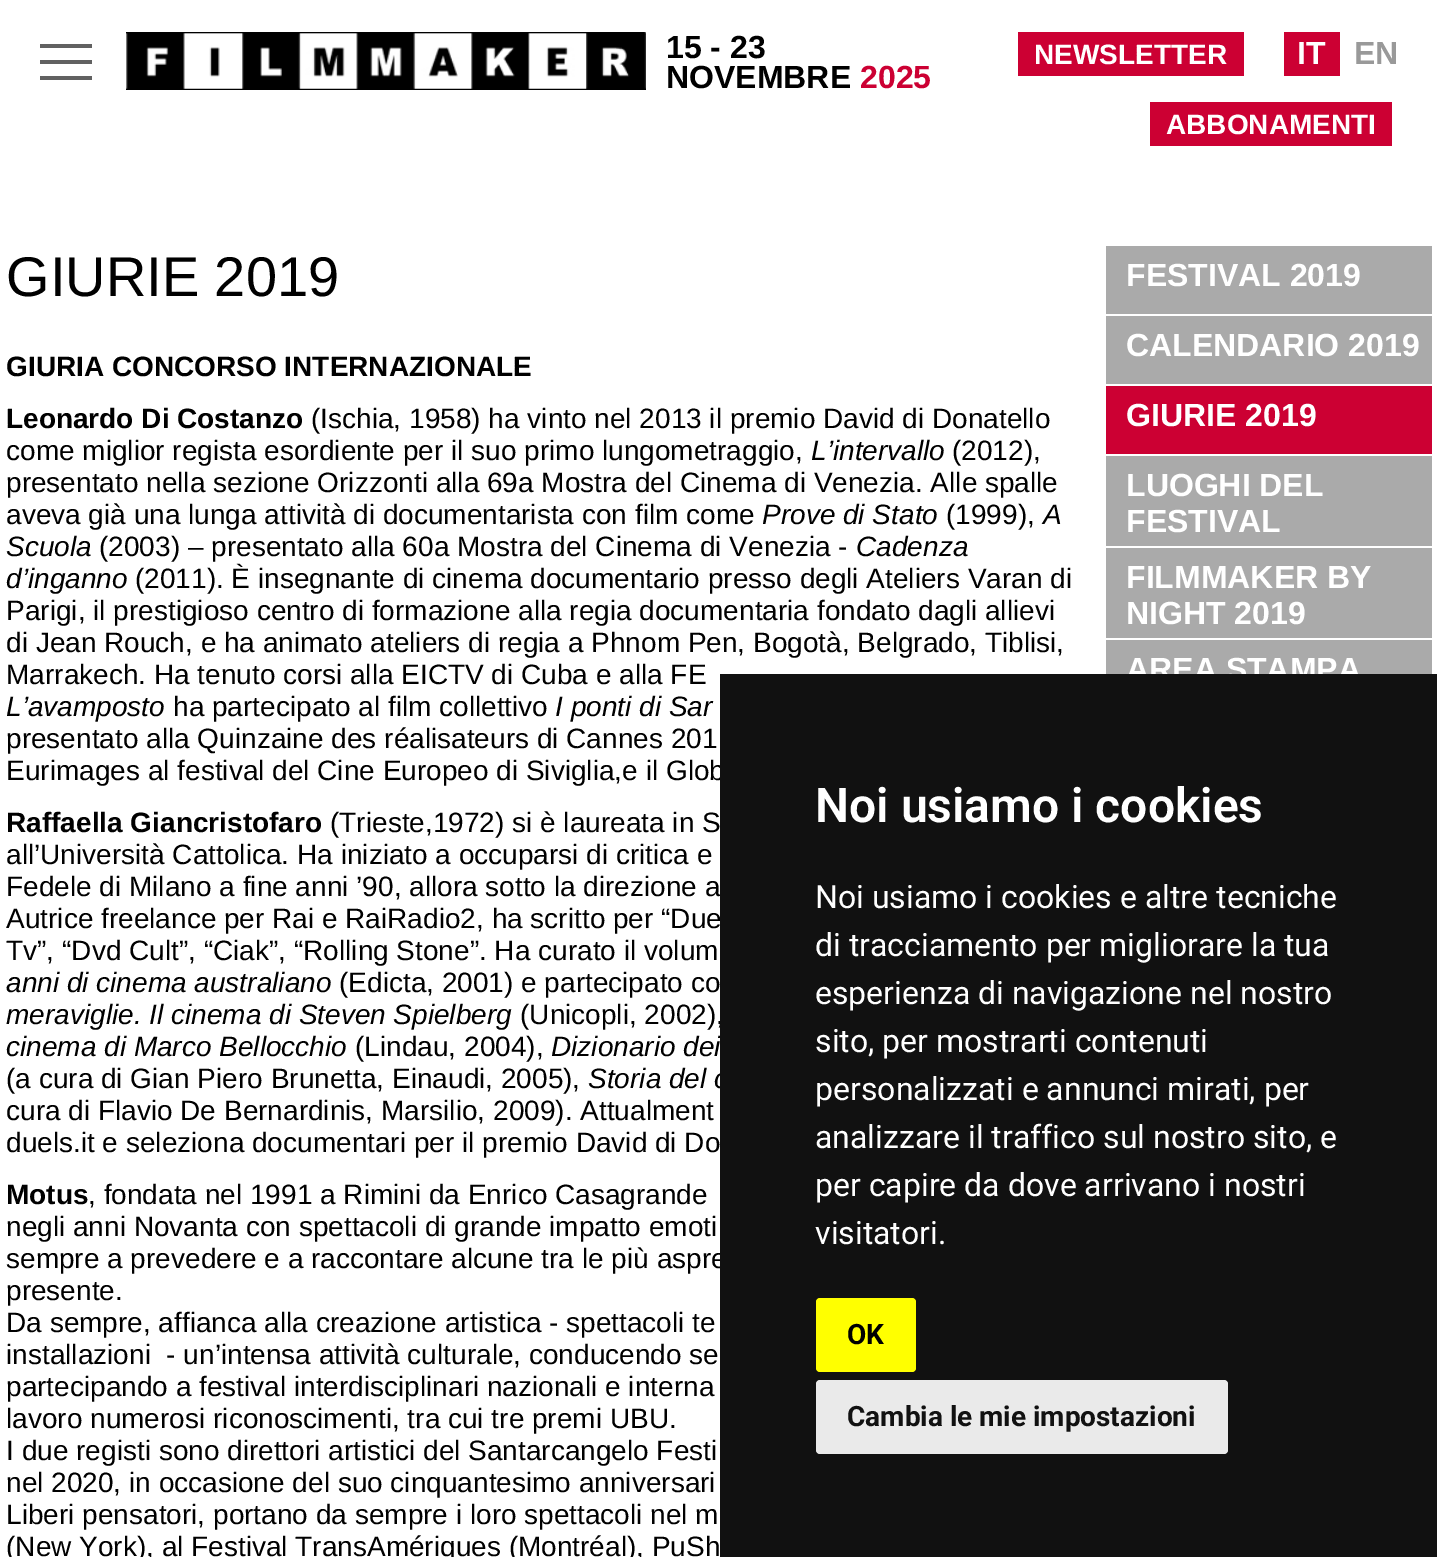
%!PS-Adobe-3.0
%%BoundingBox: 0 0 1437 1557
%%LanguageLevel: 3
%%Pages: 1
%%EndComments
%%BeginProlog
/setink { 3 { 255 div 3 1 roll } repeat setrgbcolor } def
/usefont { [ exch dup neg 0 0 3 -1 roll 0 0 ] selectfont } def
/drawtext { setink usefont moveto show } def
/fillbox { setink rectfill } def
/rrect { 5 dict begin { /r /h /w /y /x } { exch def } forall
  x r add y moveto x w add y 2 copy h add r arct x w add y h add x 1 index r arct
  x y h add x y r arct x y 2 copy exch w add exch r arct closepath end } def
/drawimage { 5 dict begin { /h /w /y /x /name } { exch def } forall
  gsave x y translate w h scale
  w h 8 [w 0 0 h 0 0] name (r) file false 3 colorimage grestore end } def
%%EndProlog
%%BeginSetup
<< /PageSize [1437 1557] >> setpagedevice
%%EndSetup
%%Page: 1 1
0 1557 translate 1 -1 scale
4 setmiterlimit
0 0 1437 1557 255 255 255 fillbox
40 60 52 4 97 97 97 fillbox
40 44 52 4 97 97 97 fillbox
40 76 52 4 97 97 97 fillbox
(assets/img1.rgb) 126 32 520 58 drawimage
(15 - 23) 666 58 /LiberationSans-Bold 32 0 0 0 drawtext
(NOVEMBRE) 666 88 /LiberationSans-Bold 32 0 0 0 drawtext
(2025) 860 88 /LiberationSans-Bold 32 204 0 51 drawtext
1018 32 226 44 204 0 51 fillbox
(NEWSLETTER) 1034 64 /LiberationSans-Bold 28 255 255 255 drawtext
1284 32 56 44 204 0 51 fillbox
(IT) 1297 64 /LiberationSans-Bold 32 255 255 255 drawtext
(EN) 1354 64 /LiberationSans-Bold 32 153 153 153 drawtext
1150 102 242 44 204 0 51 fillbox
(ABBONAMENTI) 1166 134 /LiberationSans-Bold 28 255 255 255 drawtext
(GIURIE 2019) 6 296 /LiberationSans-Regular 56 0 0 0 drawtext
(GIURIA CONCORSO INTERNAZIONALE) 6 376 /LiberationSans-Bold 28 0 0 0 drawtext
(Leonardo Di Costanzo) 6 428 /LiberationSans-Bold 28 0 0 0 drawtext
(\(Ischia, 1958\) ha vinto nel 2013 il premio David di Donatello) 311 428 /LiberationSans-Regular 28 0 0 0 drawtext
(come miglior regista esordiente per il suo primo lungometraggio,) 6 460 /LiberationSans-Regular 28 0 0 0 drawtext
(L’intervallo) 811 460 /LiberationSans-Italic 28 0 0 0 drawtext
(\(2012\),) 952 460 /LiberationSans-Regular 28 0 0 0 drawtext
(presentato nella sezione Orizzonti alla 69a Mostra del Cinema di Venezia. Alle spalle) 6 492 /LiberationSans-Regular 28 0 0 0 drawtext
(aveva già una lunga attività di documentarista con film come) 6 524 /LiberationSans-Regular 28 0 0 0 drawtext
(Prove di Stato) 762 524 /LiberationSans-Italic 28 0 0 0 drawtext
(\(1999\),) 946 524 /LiberationSans-Regular 28 0 0 0 drawtext
(A) 1043 524 /LiberationSans-Italic 28 0 0 0 drawtext
(Scuola) 6 556 /LiberationSans-Italic 28 0 0 0 drawtext
(\(2003\) – presentato alla 60a Mostra del Cinema di Venezia -) 99 556 /LiberationSans-Regular 28 0 0 0 drawtext
(Cadenza) 856 556 /LiberationSans-Italic 28 0 0 0 drawtext
(d’inganno) 6 588 /LiberationSans-Italic 28 0 0 0 drawtext
(\(2011\). È insegnante di cinema documentario presso degli Ateliers Varan di) 135 588 /LiberationSans-Regular 28 0 0 0 drawtext
(Parigi, il prestigioso centro di formazione alla regia documentaria fondato dagli allievi) 6 620 /LiberationSans-Regular 28 0 0 0 drawtext
(di Jean Rouch, e ha animato ateliers di regia a Phnom Pen, Bogotà, Belgrado, Tiblisi,) 6 652 /LiberationSans-Regular 28 0 0 0 drawtext
(Marrakech. Ha tenuto corsi alla EICTV di Cuba e alla FE) 6 684 /LiberationSans-Regular 28 0 0 0 drawtext
(L’avamposto) 6 716 /LiberationSans-Italic 28 0 0 0 drawtext
(ha partecipato al film collettivo) 173 716 /LiberationSans-Regular 28 0 0 0 drawtext
(I ponti di Sar) 555 716 /LiberationSans-Italic 28 0 0 0 drawtext
(presentato alla Quinzaine des réalisateurs di Cannes 201) 6 748 /LiberationSans-Regular 28 0 0 0 drawtext
(Eurimages al festival del Cine Europeo di Siviglia,e il Glob) 6 780 /LiberationSans-Regular 28 0 0 0 drawtext
(Raffaella Giancristofaro) 6 832 /LiberationSans-Bold 28 0 0 0 drawtext
(\(Trieste,1972\) si è laureata in S) 330 832 /LiberationSans-Regular 28 0 0 0 drawtext
(all’Università Cattolica. Ha iniziato a occuparsi di critica e) 6 864 /LiberationSans-Regular 28 0 0 0 drawtext
(Fedele di Milano a fine anni ’90, allora sotto la direzione a) 6 896 /LiberationSans-Regular 28 0 0 0 drawtext
(Autrice freelance per Rai e RaiRadio2, ha scritto per “Due) 6 928 /LiberationSans-Regular 28 0 0 0 drawtext
(Tv”, “Dvd Cult”, “Ciak”, “Rolling Stone”. Ha curato il volum) 6 960 /LiberationSans-Regular 28 0 0 0 drawtext
(anni di cinema australiano) 6 992 /LiberationSans-Italic 28 0 0 0 drawtext
(\(Edicta, 2001\) e partecipato co) 339 992 /LiberationSans-Regular 28 0 0 0 drawtext
(meraviglie. Il cinema di Steven Spielberg) 6 1024 /LiberationSans-Italic 28 0 0 0 drawtext
(\(Unicopli, 2002\),) 520 1024 /LiberationSans-Regular 28 0 0 0 drawtext
(cinema di Marco Bellocchio) 6 1056 /LiberationSans-Italic 28 0 0 0 drawtext
(\(Lindau, 2004\),) 355 1056 /LiberationSans-Regular 28 0 0 0 drawtext
(Dizionario dei) 551 1056 /LiberationSans-Italic 28 0 0 0 drawtext
(\(a cura di Gian Piero Brunetta, Einaudi, 2005\),) 6 1088 /LiberationSans-Regular 28 0 0 0 drawtext
(Storia del c) 588 1088 /LiberationSans-Italic 28 0 0 0 drawtext
(cura di Flavio De Bernardinis, Marsilio, 2009\). Attualment) 6 1120 /LiberationSans-Regular 28 0 0 0 drawtext
(duels.it e seleziona documentari per il premio David di Do) 6 1152 /LiberationSans-Regular 28 0 0 0 drawtext
(Motus) 6 1204 /LiberationSans-Bold 28 0 0 0 drawtext
(, fondata nel 1991 a Rimini da Enrico Casagrande) 88 1204 /LiberationSans-Regular 28 0 0 0 drawtext
(negli anni Novanta con spettacoli di grande impatto emoti) 6 1236 /LiberationSans-Regular 28 0 0 0 drawtext
(sempre a prevedere e a raccontare alcune tra le più aspre) 6 1268 /LiberationSans-Regular 28 0 0 0 drawtext
(presente.) 6 1300 /LiberationSans-Regular 28 0 0 0 drawtext
(Da sempre, affianca alla creazione artistica - spettacoli te) 6 1332 /LiberationSans-Regular 28 0 0 0 drawtext
(installazioni  - un’intensa attività culturale, conducendo se) 6 1364 /LiberationSans-Regular 28 0 0 0 drawtext
(partecipando a festival interdisciplinari nazionali e interna) 6 1396 /LiberationSans-Regular 28 0 0 0 drawtext
(lavoro numerosi riconoscimenti, tra cui tre premi UBU.) 6 1428 /LiberationSans-Regular 28 0 0 0 drawtext
(I due registi sono direttori artistici del Santarcangelo Festi) 6 1460 /LiberationSans-Regular 28 0 0 0 drawtext
(nel 2020, in occasione del suo cinquantesimo anniversari) 6 1492 /LiberationSans-Regular 28 0 0 0 drawtext
(Liberi pensatori, portano da sempre i loro spettacoli nel m) 6 1524 /LiberationSans-Regular 28 0 0 0 drawtext
(\(New York\), al Festival TransAmériques \(Montréal\), PuSh) 6 1556 /LiberationSans-Regular 28 0 0 0 drawtext
1106 246 326 68 170 170 170 fillbox
(FESTIVAL 2019) 1126 286 /LiberationSans-Bold 32 255 255 255 drawtext
1106 316 326 68 170 170 170 fillbox
(CALENDARIO 2019) 1126 356 /LiberationSans-Bold 32 255 255 255 drawtext
1106 386 326 68 204 0 51 fillbox
(GIURIE 2019) 1126 426 /LiberationSans-Bold 32 255 255 255 drawtext
1106 456 326 90 170 170 170 fillbox
(LUOGHI DEL) 1126 496 /LiberationSans-Bold 32 255 255 255 drawtext
(FESTIVAL) 1126 532 /LiberationSans-Bold 32 255 255 255 drawtext
1106 548 326 90 170 170 170 fillbox
(FILMMAKER BY) 1126 588 /LiberationSans-Bold 32 255 255 255 drawtext
(NIGHT 2019) 1126 624 /LiberationSans-Bold 32 255 255 255 drawtext
1106 640 326 34 170 170 170 fillbox
(AREA STAMPA) 1126 680 /LiberationSans-Bold 32 255 255 255 drawtext
720 674 717 883 17 17 17 fillbox
(Noi usiamo i cookies) 815 822 /Roboto-SemiBold 48 255 255 255 drawtext
(Noi usiamo i cookies e altre tecniche) 815 908 /Roboto-Regular 32 255 255 255 drawtext
(di tracciamento per migliorare la tua) 815 956 /Roboto-Regular 32 255 255 255 drawtext
(esperienza di navigazione nel nostro) 815 1004 /Roboto-Regular 32 255 255 255 drawtext
(sito, per mostrarti contenuti) 815 1052 /Roboto-Regular 32 255 255 255 drawtext
(personalizzati e annunci mirati, per) 815 1100 /Roboto-Regular 32 255 255 255 drawtext
(analizzare il traffico sul nostro sito, e) 815 1148 /Roboto-Regular 32 255 255 255 drawtext
(per capire da dove arrivano i nostri) 815 1196 /Roboto-Regular 32 255 255 255 drawtext
(visitatori.) 815 1244 /Roboto-Regular 32 255 255 255 drawtext
255 255 0 setink
816 1298 100 74 4 rrect fill
(OK) 847 1344 /Roboto-Bold 28 0 0 0 drawtext
234 234 234 setink
816 1380 412 74 4 rrect fill
(Cambia le mie impostazioni) 847 1426 /Roboto-Bold 28 17 17 17 drawtext
showpage
%%EOF
